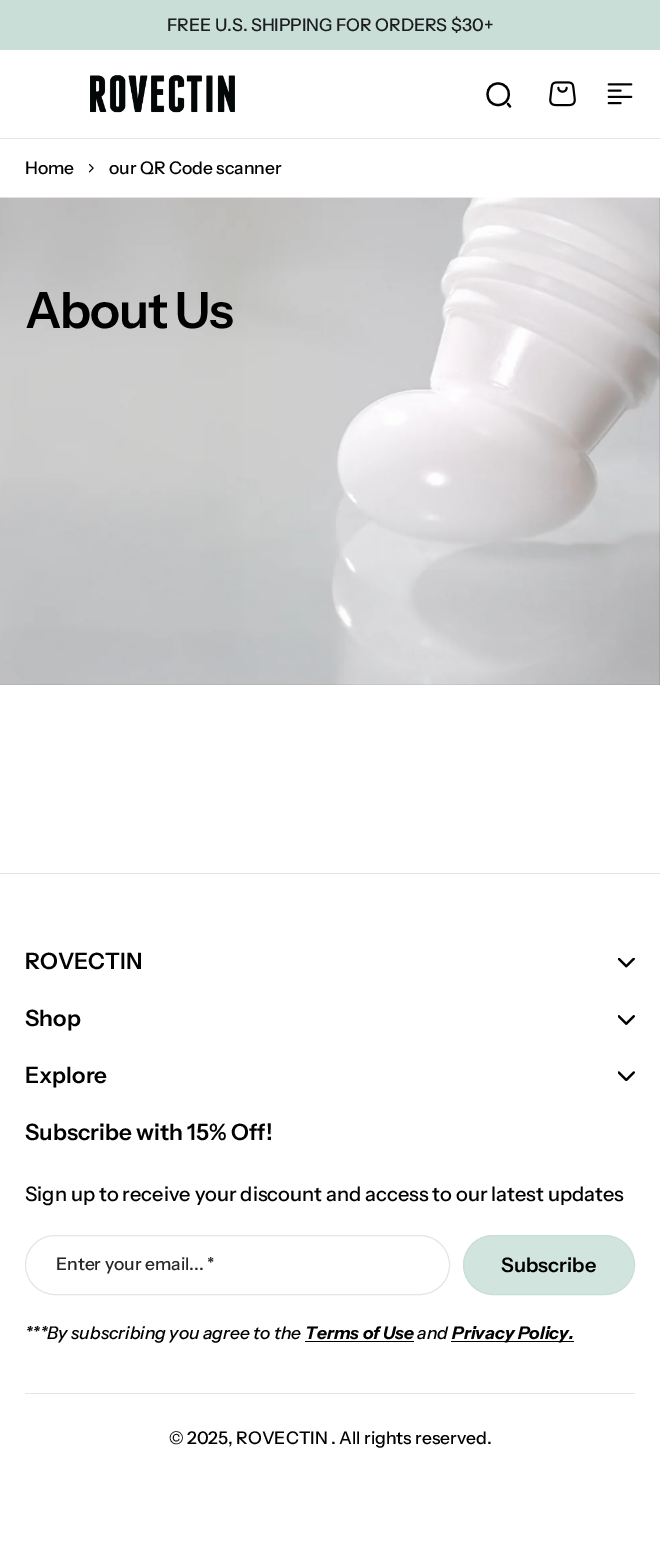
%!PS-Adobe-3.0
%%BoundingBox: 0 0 660 1565
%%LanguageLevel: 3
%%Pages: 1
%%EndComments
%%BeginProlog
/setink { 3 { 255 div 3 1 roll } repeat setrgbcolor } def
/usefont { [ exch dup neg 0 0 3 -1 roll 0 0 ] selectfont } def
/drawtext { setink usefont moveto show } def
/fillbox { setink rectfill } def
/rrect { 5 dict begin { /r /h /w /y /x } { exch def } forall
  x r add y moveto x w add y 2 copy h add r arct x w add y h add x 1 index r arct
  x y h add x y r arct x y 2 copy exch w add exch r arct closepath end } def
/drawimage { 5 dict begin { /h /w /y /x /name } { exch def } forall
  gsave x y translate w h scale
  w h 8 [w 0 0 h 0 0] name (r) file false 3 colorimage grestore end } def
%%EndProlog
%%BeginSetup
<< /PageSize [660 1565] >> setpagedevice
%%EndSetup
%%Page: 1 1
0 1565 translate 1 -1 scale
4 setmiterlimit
0 0 660 1565 255 255 255 fillbox
0 0 660 50 200 222 215 fillbox
(FREE U.S. SHIPPING FOR ORDERS $30+) 167 31 /InstrumentSans-Medium 17.5 29 29 31 drawtext
0 138 660 1 229 229 229 fillbox
(assets/img1.rgb) 90 75 145 38 drawimage
0 0 0 setink
2.2 setlinewidth
1 setlinecap
1 setlinejoin
498 105 moveto 512.5 105 512.5 83.5 498 83.5 curveto 484 83.5 484 105 498 105 curveto closepath 510 106.5 moveto 508 104 lineto stroke
(assets/img2.rgb) 549 81 27 26 drawimage
(assets/img3.rgb) 607 83 26 22 drawimage
(Home) 25 174 /InstrumentSans-Medium 17.5 0 0 0 drawtext
(assets/img4.rgb) 89 164 5 9 drawimage
(our QR Code scanner) 109 174 /InstrumentSans-Medium 17.5 0 0 0 drawtext
(assets/img5.rgb) 0 197 660 488 drawimage
/InstrumentSans-SemiBold 50 usefont
25 328 moveto -1.25 0 (About Us) ashow
0 873 660 1 229 229 229 fillbox
(ROVECTIN) 25 969 /InstrumentSans-SemiBold 22.5 0 0 0 drawtext
(assets/img6.rgb) 618 958 17 10 drawimage
(Shop) 25 1026 /InstrumentSans-SemiBold 22.5 0 0 0 drawtext
(assets/img7.rgb) 618 1015 17 10 drawimage
(Explore) 25 1083 /InstrumentSans-SemiBold 22.5 0 0 0 drawtext
(assets/img8.rgb) 618 1071 17 10 drawimage
(Subscribe with 15% Off!) 25 1140 /InstrumentSans-SemiBold 22.5 0 0 0 drawtext
(Sign up to receive your discount and access to our latest updates) 25 1201 /InstrumentSans-Medium 20 0 0 0 drawtext
229 229 229 setink
1 setlinewidth
0 setlinecap
0 setlinejoin
25.5 1235.5 424 59 29.5 rrect stroke
(Enter your email... *) 56 1270 /InstrumentSans-Medium 17.5 38 38 38 drawtext
209 229 222 setink
463.5 1235.5 171 59 29.5 rrect gsave fill grestore
200 222 215 setink
stroke
(Subscribe) 501 1272 /InstrumentSans-SemiBold 20 0 0 0 drawtext
(***By subscribing you agree to the) 25 1339 /InstrumentSans-MediumItalic 17.5 0 0 0 drawtext
(Terms of Use) 305 1339 /InstrumentSans-BoldItalic 17.5 0 0 0 drawtext
305 1341 109 1 0 0 0 fillbox
(and) 417 1339 /InstrumentSans-MediumItalic 17.5 0 0 0 drawtext
451 1341 123 1 0 0 0 fillbox
(Privacy Policy.) 452 1339 /InstrumentSans-BoldItalic 17.5 0 0 0 drawtext
25 1393 610 1 229 229 229 fillbox
(© 2025, ROVECTIN . All rights reserved.) 169 1444 /InstrumentSans-Medium 17.5 0 0 0 drawtext
showpage
%%EOF
